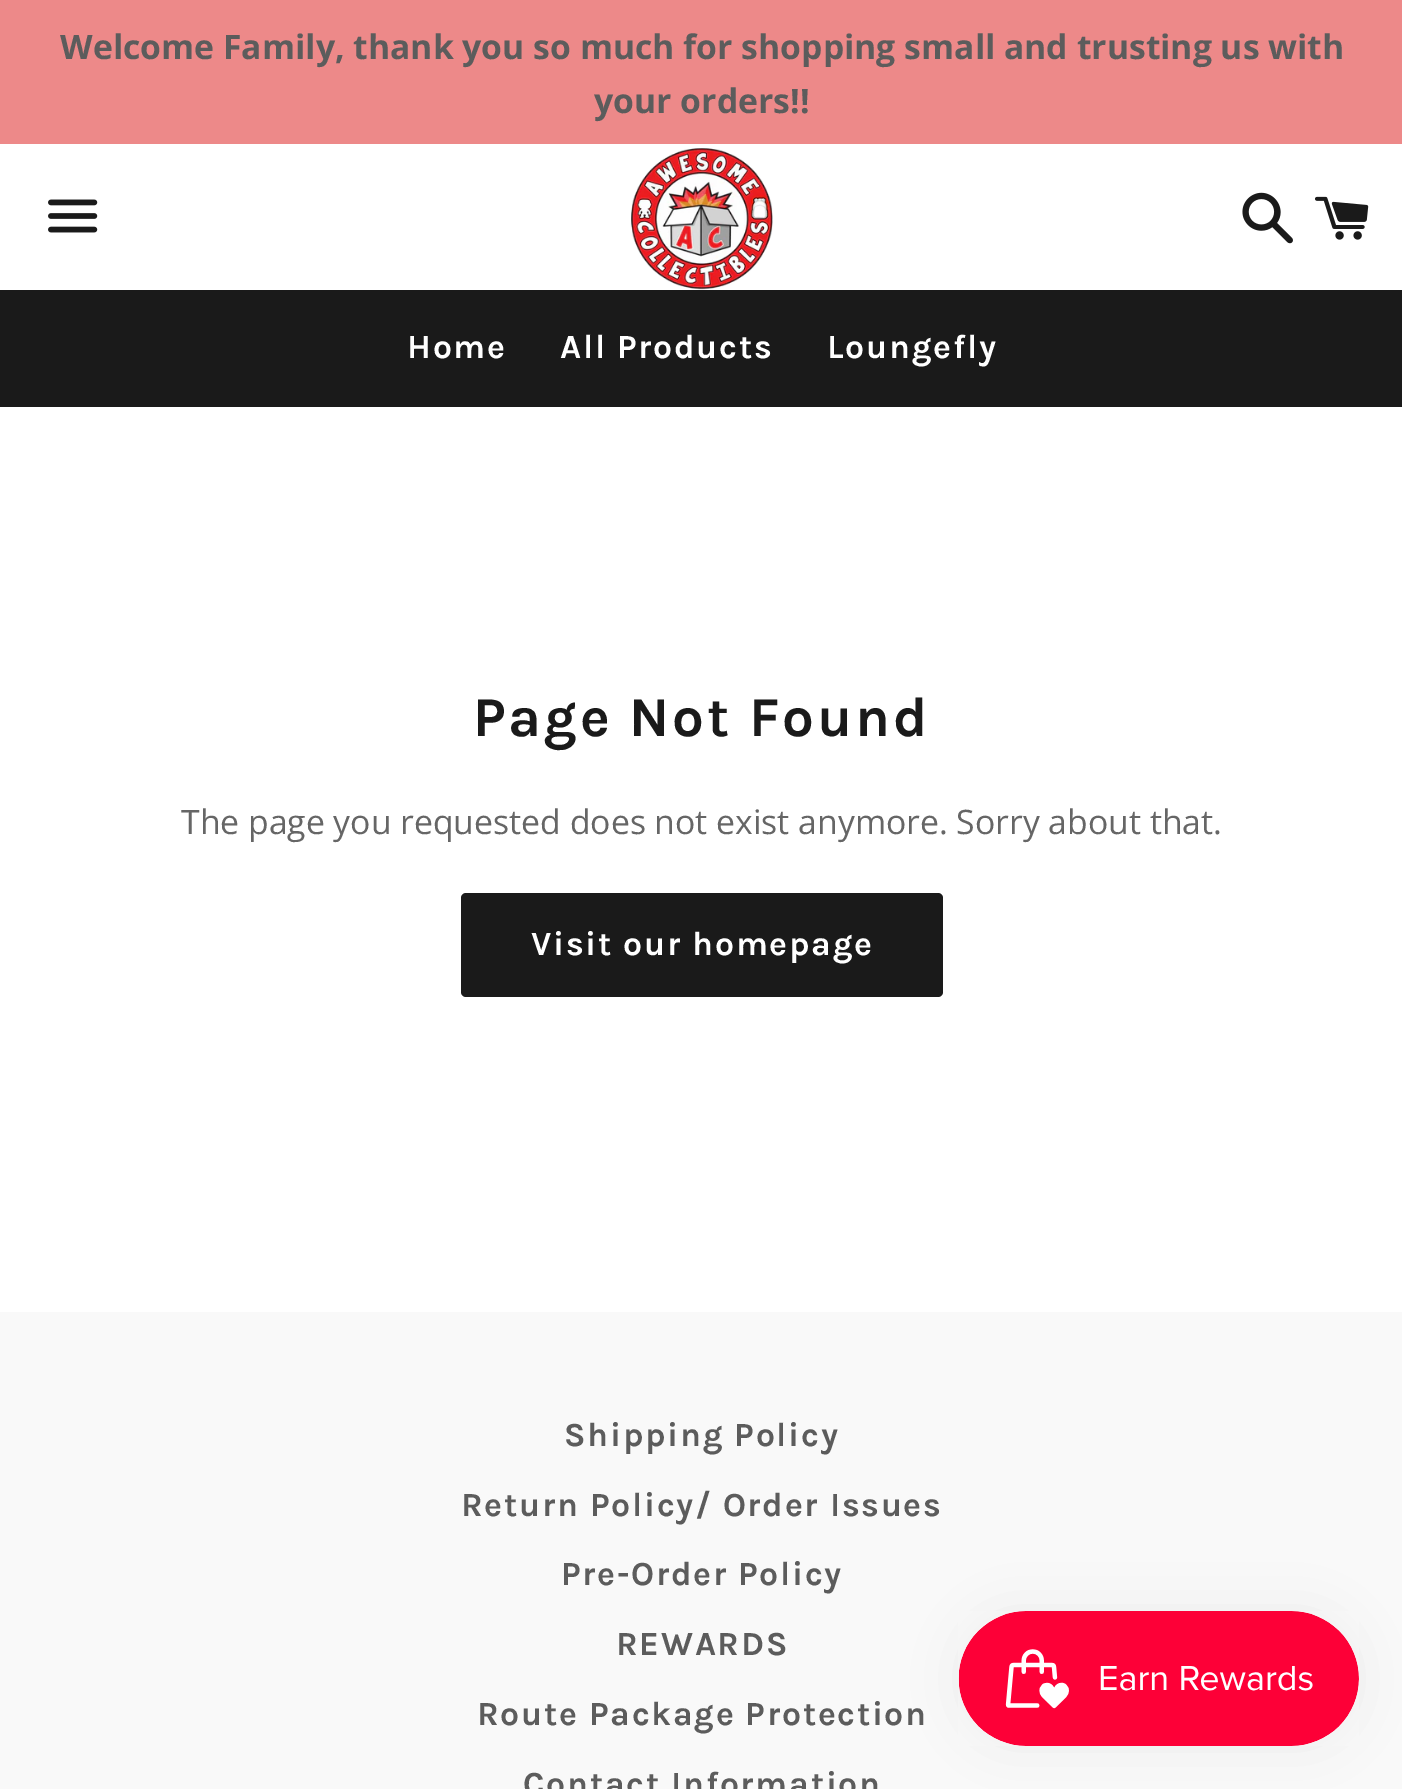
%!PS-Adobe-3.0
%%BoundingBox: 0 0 1402 1789
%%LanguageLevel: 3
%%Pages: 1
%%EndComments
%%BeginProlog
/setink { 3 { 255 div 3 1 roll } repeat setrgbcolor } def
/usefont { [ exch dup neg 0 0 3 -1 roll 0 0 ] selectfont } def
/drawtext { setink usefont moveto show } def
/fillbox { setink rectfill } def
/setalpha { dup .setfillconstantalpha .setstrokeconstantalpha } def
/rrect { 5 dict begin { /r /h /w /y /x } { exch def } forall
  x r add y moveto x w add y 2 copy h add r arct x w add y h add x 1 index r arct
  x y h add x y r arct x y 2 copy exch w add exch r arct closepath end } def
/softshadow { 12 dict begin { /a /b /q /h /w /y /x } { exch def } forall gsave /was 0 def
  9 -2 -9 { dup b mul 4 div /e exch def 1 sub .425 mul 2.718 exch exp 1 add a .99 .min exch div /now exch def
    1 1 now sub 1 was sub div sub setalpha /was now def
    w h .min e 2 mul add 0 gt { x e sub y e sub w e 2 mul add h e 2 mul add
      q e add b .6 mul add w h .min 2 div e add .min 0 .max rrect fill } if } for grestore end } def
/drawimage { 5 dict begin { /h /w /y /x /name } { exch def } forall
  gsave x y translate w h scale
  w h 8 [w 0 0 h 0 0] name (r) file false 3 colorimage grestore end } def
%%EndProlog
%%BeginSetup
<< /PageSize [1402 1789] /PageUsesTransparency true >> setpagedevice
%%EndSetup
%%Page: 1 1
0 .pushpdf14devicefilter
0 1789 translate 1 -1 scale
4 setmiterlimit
0 0 1402 1789 255 255 255 fillbox
0 0 1402 144 237 137 137 fillbox
(Welcome Family, thank you so much for shopping small and trusting us with) 60 59 /OpenSans-Bold 33.75 92 92 92 drawtext
(your orders!!) 594 113 /OpenSans-Bold 33.75 92 92 92 drawtext
(assets/img1.rgb) 48 199 50 34 drawimage
(assets/img2.rgb) 631 148 142 142 drawimage
(assets/img3.rgb) 1242 192 51 52 drawimage
(assets/img4.rgb) 1315 196 54 44 drawimage
0 290 1402 117 26 26 26 fillbox
/Karla-Bold 33.75 usefont
255 255 255 setink
407 358 moveto 1.7 0 (Home) ashow
560 358 moveto 1.7 0 (All Products) ashow
827 358 moveto 1.7 0 (Loungefly) ashow
/Karla-Bold 56.25 usefont
26 26 26 setink
473 736 moveto 2.75 0 (Page Not Found) ashow
(The page you requested does not exist anymore. Sorry about that.) 181 834 /OpenSans-Regular 33.75 102 102 102 drawtext
26 26 26 setink
461 893 482 104 5 rrect fill
/Karla-Bold 33.75 usefont
255 255 255 setink
531 955 moveto 1.7 0 (Visit our homepage) ashow
0 1312 1402 477 249 249 249 fillbox
92 92 92 setink
564 1446 moveto 1.7 0 (Shipping Policy) ashow
461 1516 moveto 1.7 0 (Return Policy/ Order Issues) ashow
561 1585 moveto 1.7 0 (Pre-Order Policy) ashow
616 1655 moveto 1.7 0 (REWARDS) ashow
477 1725 moveto 1.7 0 (Route Package Protection) ashow
523 1795 moveto 1.7 0 (Contact Information) ashow
0 0 0 setink
959 1611 400 135 67.5 28 0.05 softshadow
(assets/img5.rgb) 958 1611 401 135 drawimage
.poppdf14devicefilter showpage
%%EOF
